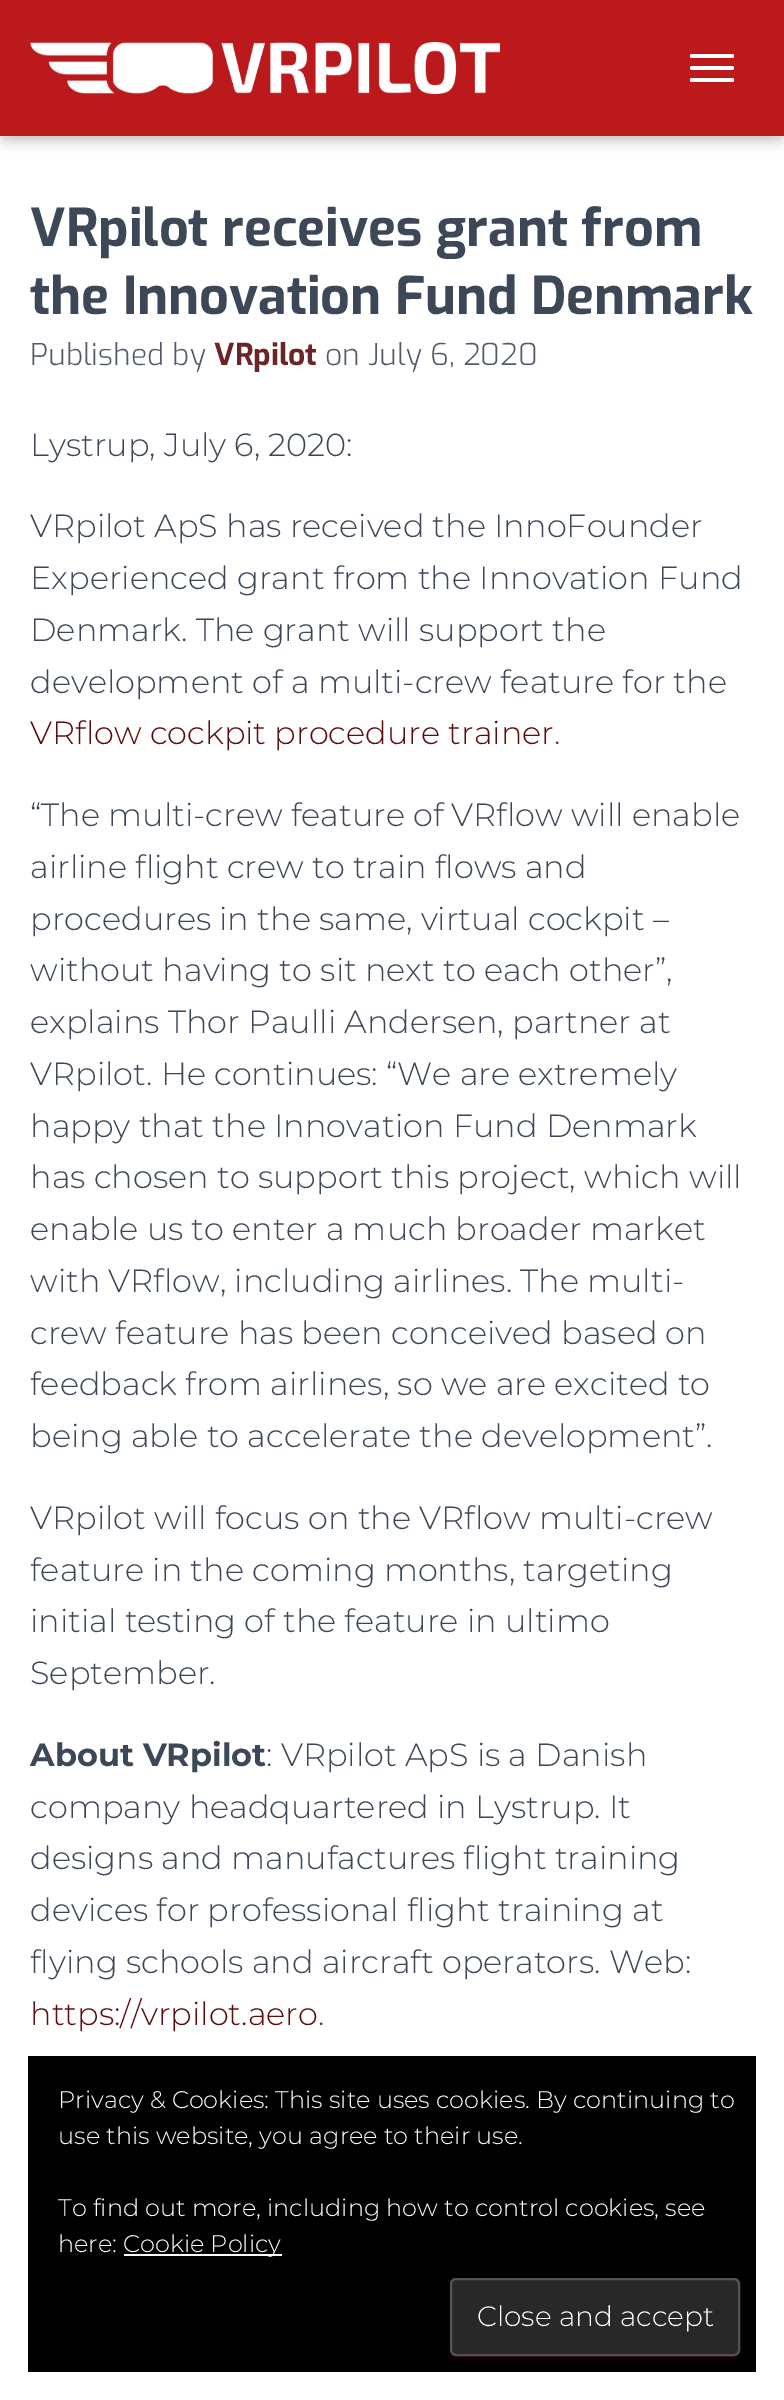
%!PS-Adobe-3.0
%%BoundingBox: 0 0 784 2400
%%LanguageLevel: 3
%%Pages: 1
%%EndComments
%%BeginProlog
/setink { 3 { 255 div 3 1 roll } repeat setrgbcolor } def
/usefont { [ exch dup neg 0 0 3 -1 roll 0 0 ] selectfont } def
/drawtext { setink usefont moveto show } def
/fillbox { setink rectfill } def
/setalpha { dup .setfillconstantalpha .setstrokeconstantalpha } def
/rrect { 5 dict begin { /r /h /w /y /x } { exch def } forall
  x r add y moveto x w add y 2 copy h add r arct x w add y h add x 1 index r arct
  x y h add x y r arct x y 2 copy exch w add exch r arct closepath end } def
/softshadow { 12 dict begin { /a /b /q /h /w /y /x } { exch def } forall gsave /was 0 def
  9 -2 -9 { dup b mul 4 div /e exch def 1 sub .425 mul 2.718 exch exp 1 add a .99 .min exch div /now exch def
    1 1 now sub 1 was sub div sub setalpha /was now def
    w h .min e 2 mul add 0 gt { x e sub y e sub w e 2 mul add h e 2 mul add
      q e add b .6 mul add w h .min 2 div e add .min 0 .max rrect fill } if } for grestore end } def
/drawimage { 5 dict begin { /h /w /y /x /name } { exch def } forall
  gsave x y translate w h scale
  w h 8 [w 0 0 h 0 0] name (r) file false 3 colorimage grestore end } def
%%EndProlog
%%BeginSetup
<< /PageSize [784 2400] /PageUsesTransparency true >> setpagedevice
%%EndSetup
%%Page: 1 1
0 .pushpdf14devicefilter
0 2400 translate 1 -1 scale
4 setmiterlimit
0 0 784 2400 255 255 255 fillbox
0 0 0 setink
4 12 776 128 0 5 0.1 softshadow
0 2 784 136 0 10 0.12 softshadow
12 14 760 112 0 10 0.42 softshadow
0 0 784 136 187 25 28 fillbox
(assets/img1.rgb) 30 42 470 52 drawimage
255 255 255 setink
690 54 44 4 2 rrect fill
690 66 44 4 2 rrect fill
690 78 44 4 2 rrect fill
(VRpilot receives grant from) 30 246 /Exo-Bold 52 60 72 88 drawtext
(the Innovation Fund Denmark) 30 314 /Exo-Bold 52 60 72 88 drawtext
(Published by) 30 365 /Exo-Light 30 80 90 105 drawtext
(VRpilot) 214 365 /Exo-Bold 30 109 36 38 drawtext
(on July 6, 2020) 325 365 /Exo-Light 30 80 90 105 drawtext
(Lystrup, July 6, 2020:) 30 456 /Montserrat-Light 32 60 72 88 drawtext
(VRpilot ApS has received the InnoFounder) 30 537 /Montserrat-Light 32 60 72 88 drawtext
(Experienced grant from the Innovation Fund) 30 589 /Montserrat-Light 32 60 72 88 drawtext
(Denmark. The grant will support the) 30 641 /Montserrat-Light 32 60 72 88 drawtext
(development of a multi-crew feature for the) 30 693 /Montserrat-Light 32 60 72 88 drawtext
(VRflow cockpit procedure trainer) 30 744 /Montserrat-Light 32 93 12 14 drawtext
(.) 554 744 /Montserrat-Light 32 60 72 88 drawtext
(“The multi-crew feature of VRflow will enable) 30 826 /Montserrat-Light 32 60 72 88 drawtext
(airline flight crew to train flows and) 30 878 /Montserrat-Light 32 60 72 88 drawtext
(procedures in the same, virtual cockpit –) 30 930 /Montserrat-Light 32 60 72 88 drawtext
(without having to sit next to each other”,) 30 981 /Montserrat-Light 32 60 72 88 drawtext
(explains Thor Paulli Andersen, partner at) 30 1033 /Montserrat-Light 32 60 72 88 drawtext
(VRpilot. He continues: “We are extremely) 30 1085 /Montserrat-Light 32 60 72 88 drawtext
(happy that the Innovation Fund Denmark) 30 1137 /Montserrat-Light 32 60 72 88 drawtext
(has chosen to support this project, which will) 30 1188 /Montserrat-Light 32 60 72 88 drawtext
(enable us to enter a much broader market) 30 1240 /Montserrat-Light 32 60 72 88 drawtext
(with VRflow, including airlines. The multi-) 30 1292 /Montserrat-Light 32 60 72 88 drawtext
(crew feature has been conceived based on) 30 1344 /Montserrat-Light 32 60 72 88 drawtext
(feedback from airlines, so we are excited to) 30 1395 /Montserrat-Light 32 60 72 88 drawtext
(being able to accelerate the development”.) 30 1447 /Montserrat-Light 32 60 72 88 drawtext
(VRpilot will focus on the VRflow multi-crew) 30 1529 /Montserrat-Light 32 60 72 88 drawtext
(feature in the coming months, targeting) 30 1581 /Montserrat-Light 32 60 72 88 drawtext
(initial testing of the feature in ultimo) 30 1632 /Montserrat-Light 32 60 72 88 drawtext
(September.) 30 1684 /Montserrat-Light 32 60 72 88 drawtext
(About VRpilot) 30 1766 /Montserrat-Bold 32 60 72 88 drawtext
(: VRpilot ApS is a Danish) 266 1766 /Montserrat-Light 32 60 72 88 drawtext
(company headquartered in Lystrup. It) 30 1818 /Montserrat-Light 32 60 72 88 drawtext
(designs and manufactures flight training) 30 1869 /Montserrat-Light 32 60 72 88 drawtext
(devices for professional flight training at) 30 1921 /Montserrat-Light 32 60 72 88 drawtext
(flying schools and aircraft operators. Web:) 30 1973 /Montserrat-Light 32 60 72 88 drawtext
(https://vrpilot.aero) 30 2025 /Montserrat-Light 32 93 12 14 drawtext
(.) 318 2025 /Montserrat-Light 32 60 72 88 drawtext
28 2056 728 316 0 0 0 fillbox
(Privacy & Cookies: This site uses cookies. By continuing to) 58 2108 /Montserrat-Light 24 255 255 255 drawtext
(use this website, you agree to their use.) 58 2144 /Montserrat-Light 24 255 255 255 drawtext
(To find out more, including how to control cookies, see) 58 2216 /Montserrat-Light 24 255 255 255 drawtext
(here:) 58 2252 /Montserrat-Light 24 255 255 255 drawtext
124 2254 158 2 255 255 255 fillbox
(Cookie Policy) 123 2252 /Montserrat-Light 24 255 255 255 drawtext
93 12 14 setink
450 2280 290 78 6 5 0.12 softshadow
454 2288 282 70 2 1 0.2 softshadow
450 2282 290 78 6 2 0.14 softshadow
40 40 40 setink
451 2279 288 76 5 rrect gsave fill grestore
83 83 83 setink
2 setlinewidth
stroke
(Close and accept) 477 2326 /Montserrat-Light 28 255 255 255 drawtext
.poppdf14devicefilter showpage
%%EOF
